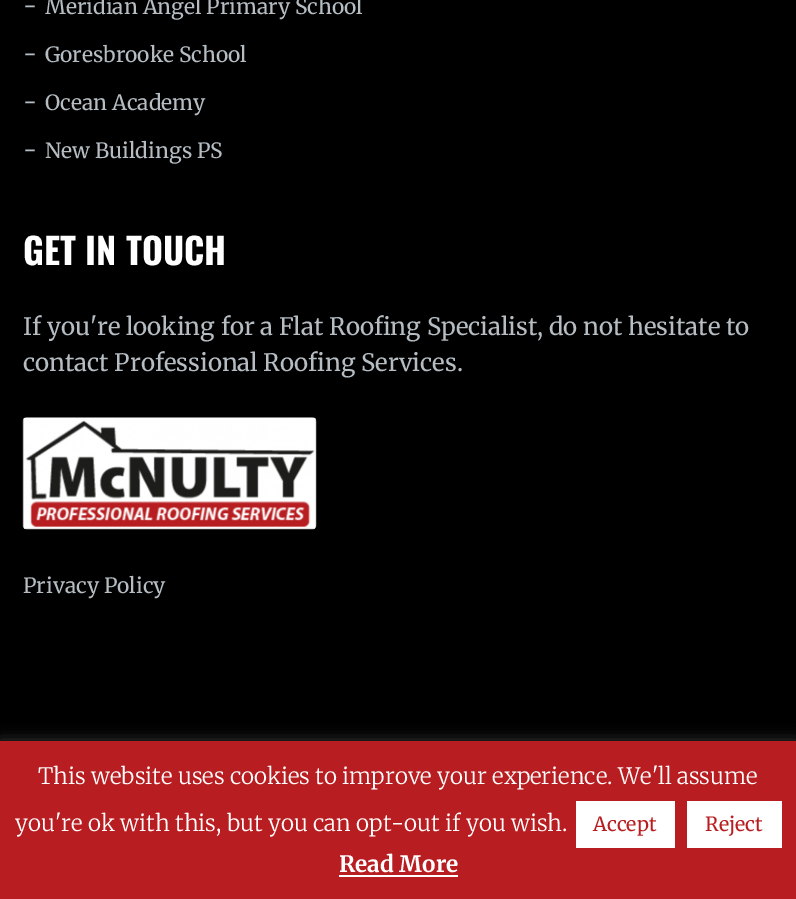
%!PS-Adobe-3.0
%%BoundingBox: 0 0 796 899
%%LanguageLevel: 3
%%Pages: 1
%%EndComments
%%BeginProlog
/setink { 3 { 255 div 3 1 roll } repeat setrgbcolor } def
/usefont { [ exch dup neg 0 0 3 -1 roll 0 0 ] selectfont } def
/drawtext { setink usefont moveto show } def
/fillbox { setink rectfill } def
/setalpha { dup .setfillconstantalpha .setstrokeconstantalpha } def
/rrect { 5 dict begin { /r /h /w /y /x } { exch def } forall
  x r add y moveto x w add y 2 copy h add r arct x w add y h add x 1 index r arct
  x y h add x y r arct x y 2 copy exch w add exch r arct closepath end } def
/softshadow { 12 dict begin { /a /b /q /h /w /y /x } { exch def } forall gsave /was 0 def
  9 -2 -9 { dup b mul 4 div /e exch def 1 sub .425 mul 2.718 exch exp 1 add a .99 .min exch div /now exch def
    1 1 now sub 1 was sub div sub setalpha /was now def
    w h .min e 2 mul add 0 gt { x e sub y e sub w e 2 mul add h e 2 mul add
      q e add b .6 mul add w h .min 2 div e add .min 0 .max rrect fill } if } for grestore end } def
/drawimage { 5 dict begin { /h /w /y /x /name } { exch def } forall
  gsave x y translate w h scale
  w h 8 [w 0 0 h 0 0] name (r) file false 3 colorimage grestore end } def
%%EndProlog
%%BeginSetup
<< /PageSize [796 899] /PageUsesTransparency true >> setpagedevice
%%EndSetup
%%Page: 1 1
0 .pushpdf14devicefilter
0 899 translate 1 -1 scale
4 setmiterlimit
0 0 796 899 0 0 0 fillbox
(-) 23 14 /Merriweather-Regular 24 181 189 195 drawtext
(Meridian Angel Primary School) 45 14 /Merriweather-Regular 21 181 189 195 drawtext
(-) 23 62 /Merriweather-Regular 24 181 189 195 drawtext
(Goresbrooke School) 45 62 /Merriweather-Regular 21 181 189 195 drawtext
(-) 23 110 /Merriweather-Regular 24 181 189 195 drawtext
(Ocean Academy) 45 110 /Merriweather-Regular 21 181 189 195 drawtext
(-) 23 158 /Merriweather-Regular 24 181 189 195 drawtext
(New Buildings PS) 45 158 /Merriweather-Regular 21 181 189 195 drawtext
(GET IN TOUCH) 23 265 /Oswald-Bold 36 255 255 255 drawtext
(If you're looking for a Flat Roofing Specialist, do not hesitate to) 23 335 /Merriweather-Regular 24 181 189 195 drawtext
(contact Professional Roofing Services.) 23 371 /Merriweather-Regular 24 181 189 195 drawtext
(assets/img1.rgb) 22 417 295 113 drawimage
(Privacy Policy) 23 593 /Merriweather-Regular 21 181 189 195 drawtext
172 171 171 setink
0 740 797 159 0 7.5 0.3 softshadow
0 741 796 158 184 30 33 fillbox
(This website uses cookies to improve your experience. We'll assume) 38 784 /Merriweather-Light 22.5 255 255 255 drawtext
(you're ok with this, but you can opt-out if you wish.) 15 831 /Merriweather-Light 22.5 255 255 255 drawtext
576 801 99 47 255 255 255 fillbox
(Accept) 593 831 /Merriweather-Regular 19.5 184 30 33 drawtext
687 801 95 47 255 255 255 fillbox
(Reject) 705 831 /Merriweather-Regular 19.5 184 30 33 drawtext
(Read More) 339 872 /Merriweather-Bold 22.5 255 255 255 drawtext
339 875 119 2 255 255 255 fillbox
.poppdf14devicefilter showpage
%%EOF
